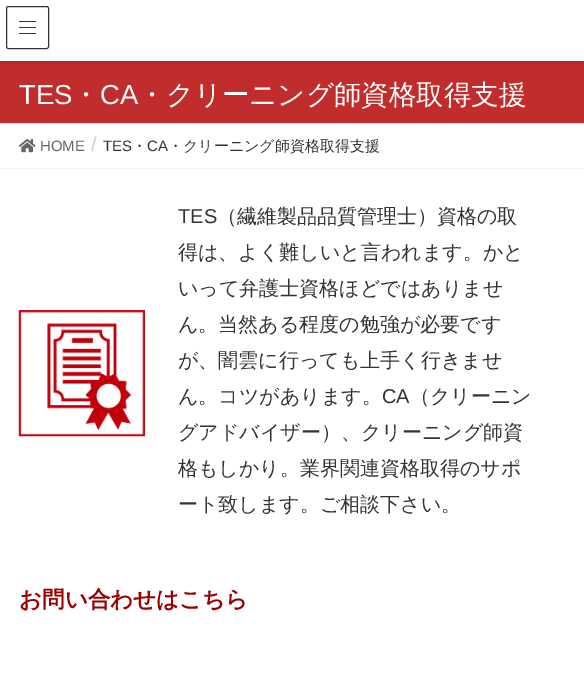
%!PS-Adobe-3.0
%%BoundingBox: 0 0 584 675
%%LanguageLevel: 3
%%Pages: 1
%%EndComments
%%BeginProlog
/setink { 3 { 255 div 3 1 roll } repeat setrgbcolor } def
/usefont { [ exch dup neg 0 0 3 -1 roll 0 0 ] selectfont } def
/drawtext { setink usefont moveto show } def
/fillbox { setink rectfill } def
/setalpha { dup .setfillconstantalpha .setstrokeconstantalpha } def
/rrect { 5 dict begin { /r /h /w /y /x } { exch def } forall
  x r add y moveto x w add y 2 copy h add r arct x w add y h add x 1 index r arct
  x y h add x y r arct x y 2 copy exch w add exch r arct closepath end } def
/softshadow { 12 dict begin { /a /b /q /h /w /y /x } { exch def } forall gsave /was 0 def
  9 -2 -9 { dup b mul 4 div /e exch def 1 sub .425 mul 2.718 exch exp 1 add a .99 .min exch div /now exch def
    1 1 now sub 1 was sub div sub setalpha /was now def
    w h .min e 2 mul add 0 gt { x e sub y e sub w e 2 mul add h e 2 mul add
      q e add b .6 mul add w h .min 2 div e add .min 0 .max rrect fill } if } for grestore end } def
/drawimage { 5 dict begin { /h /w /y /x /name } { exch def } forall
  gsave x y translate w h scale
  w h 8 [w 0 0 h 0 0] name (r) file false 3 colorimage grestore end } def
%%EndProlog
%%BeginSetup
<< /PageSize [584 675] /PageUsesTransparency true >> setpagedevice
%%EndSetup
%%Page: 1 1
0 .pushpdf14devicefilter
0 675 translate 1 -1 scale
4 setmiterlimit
0 0 584 675 255 255 255 fillbox
0 61 584 62 193 44 44 fillbox
gsave
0 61 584 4 rectclip
0 0 0 setink
0 1 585 62 0 2 0.1 softshadow
grestore
19 21 17 1 51 51 51 fillbox
19 27 17 1 51 51 51 fillbox
19 33 17 1 51 51 51 fillbox
6.5 6.5 42 42 2 rrect stroke
0 123 584 1 238 238 238 fillbox
(TES) 19 104 /LiberationSans-Regular 27.5 255 255 255 drawtext
(・) 72 104 /WenQuanYiZenHei-Medium 27.5 255 255 255 drawtext
(CA) 100 104 /LiberationSans-Regular 27.5 255 255 255 drawtext
(・クリーニング師資格取得支援) 138 104 /WenQuanYiZenHei-Medium 27.5 255 255 255 drawtext
0 168 584 1 243 243 243 fillbox
(assets/img1.rgb) 18 139 18 14 drawimage
(HOME) 40 151 /LiberationSans-Regular 15 102 102 102 drawtext
(/) 91 151 /LiberationSans-Regular 20 204 204 204 drawtext
(TES) 103 151 /LiberationSans-Regular 15 51 51 51 drawtext
(・) 132 151 /WenQuanYiZenHei-Medium 15 51 51 51 drawtext
(CA) 147 151 /LiberationSans-Regular 15 51 51 51 drawtext
(・クリーニング師資格取得支援) 168 151 /WenQuanYiZenHei-Medium 15 51 51 51 drawtext
(assets/img2.rgb) 18 310 127 127 drawimage
(TES) 178 223 /LiberationSans-Regular 20 51 51 51 drawtext
(（繊維製品品質管理士）資格の取) 217 223 /WenQuanYiZenHei-Medium 20 51 51 51 drawtext
(得は、よく難しいと言われます。かと) 178 259 /WenQuanYiZenHei-Medium 20 51 51 51 drawtext
(いって弁護士資格ほどではありませ) 178 295 /WenQuanYiZenHei-Medium 20 51 51 51 drawtext
(ん。当然ある程度の勉強が必要です) 178 331 /WenQuanYiZenHei-Medium 20 51 51 51 drawtext
(が、闇雲に行っても上手く行きませ) 178 367 /WenQuanYiZenHei-Medium 20 51 51 51 drawtext
(ん。コツがあります。) 178 403 /WenQuanYiZenHei-Medium 20 51 51 51 drawtext
(CA) 382 403 /LiberationSans-Regular 20 51 51 51 drawtext
(（クリーニン) 410 403 /WenQuanYiZenHei-Medium 20 51 51 51 drawtext
(グアドバイザー）、クリーニング師資) 178 439 /WenQuanYiZenHei-Medium 20 51 51 51 drawtext
(格もしかり。業界関連資格取得のサポ) 178 475 /WenQuanYiZenHei-Medium 20 51 51 51 drawtext
(ート致します。ご相談下さい。) 178 511 /WenQuanYiZenHei-Medium 20 51 51 51 drawtext
(お問い合わせはこちら) 19 607 /WenQuanYiZenHei-Bold 22.5 155 0 0 drawtext
.poppdf14devicefilter showpage
%%EOF
